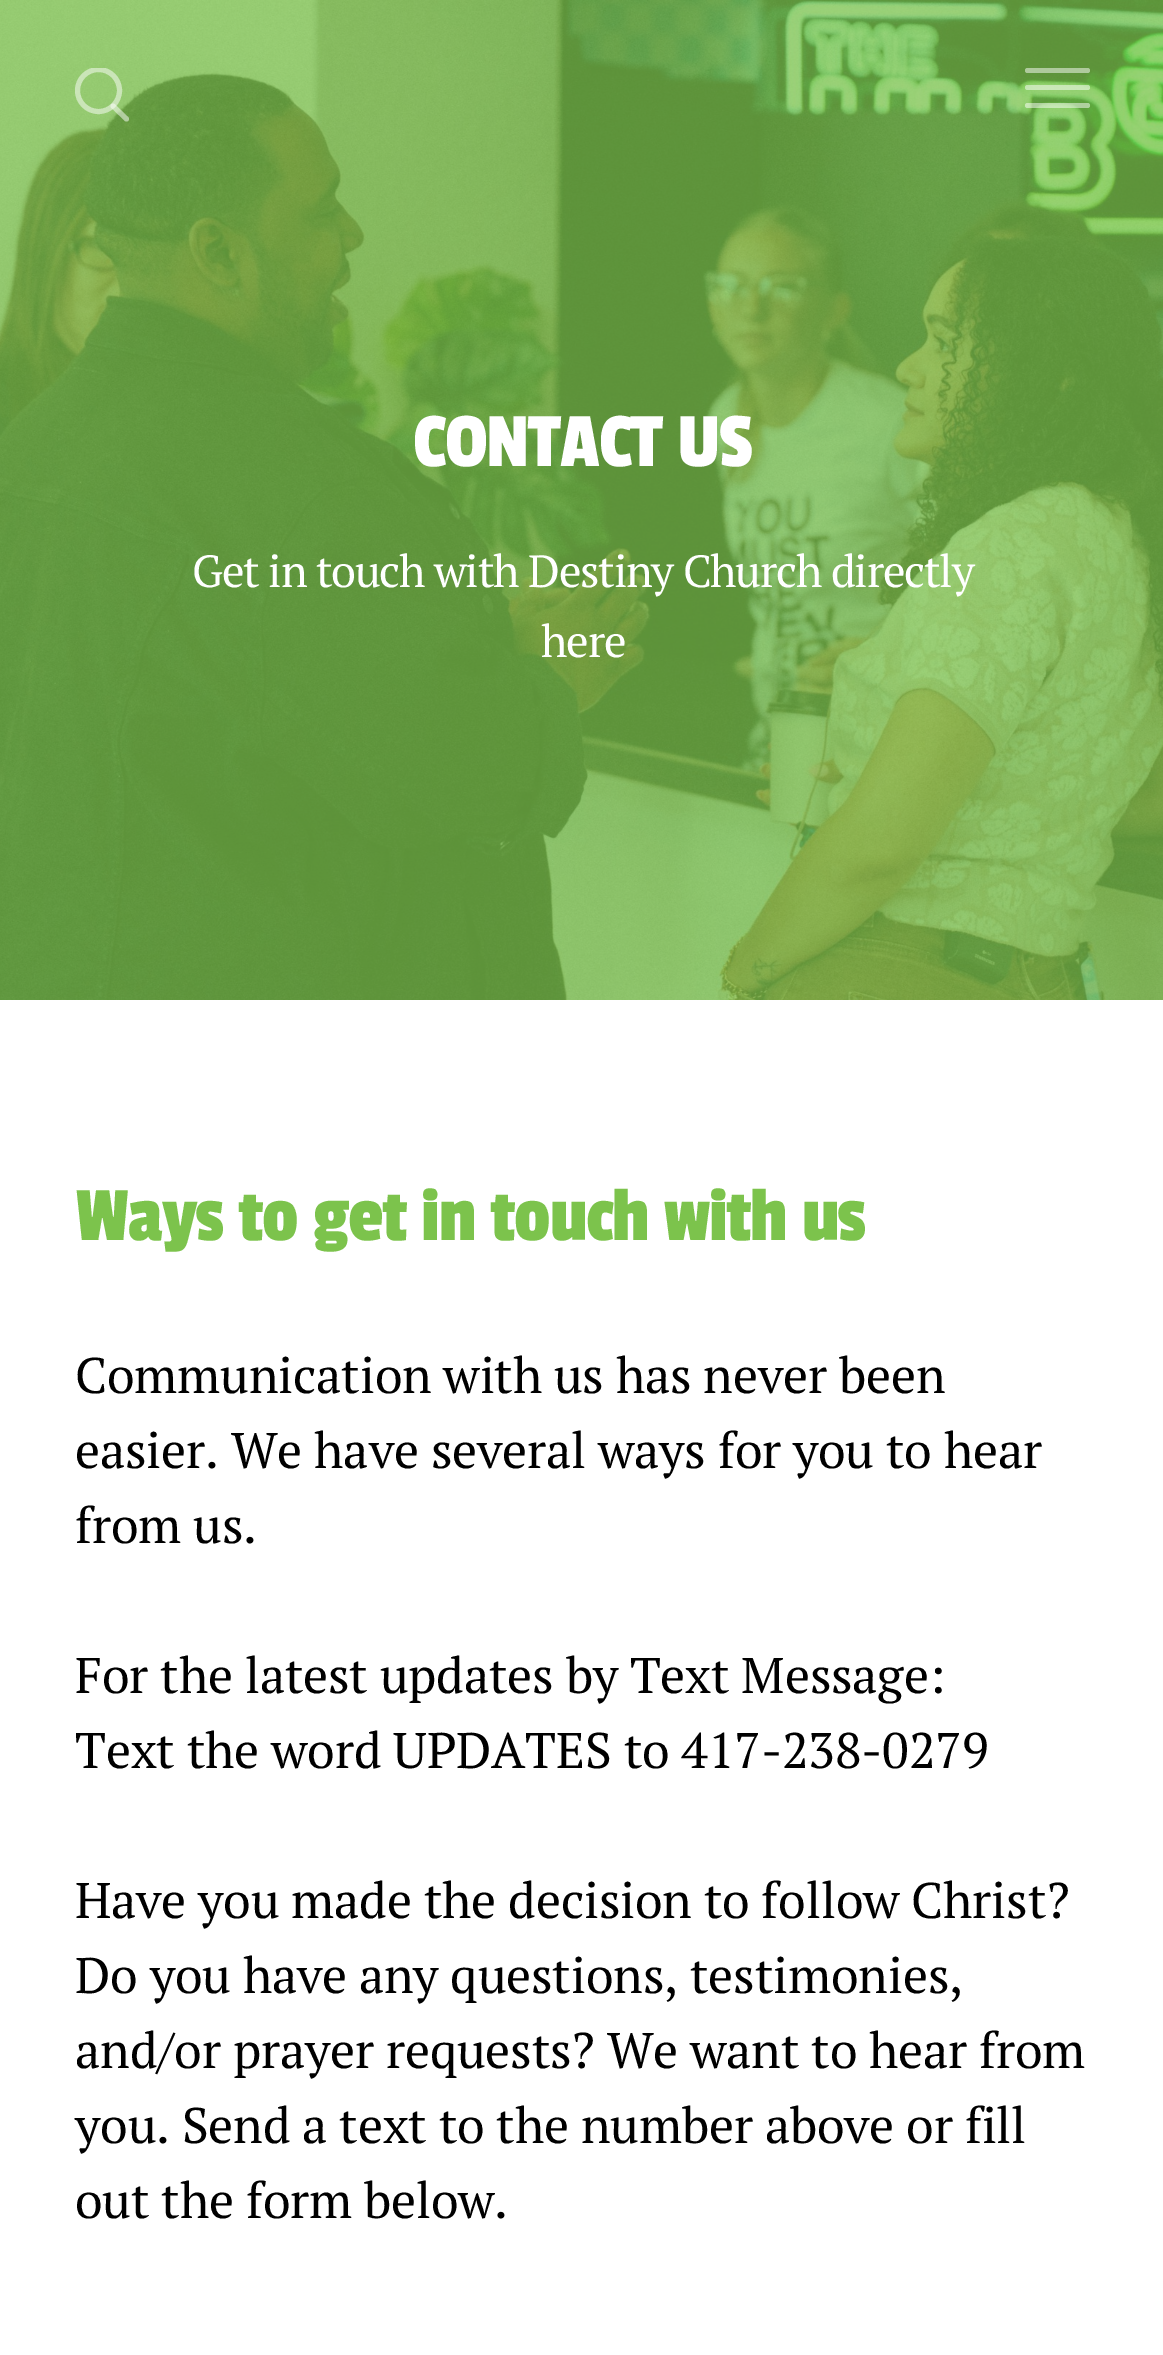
%!PS-Adobe-3.0
%%BoundingBox: 0 0 1163 2355
%%LanguageLevel: 3
%%Pages: 1
%%EndComments
%%BeginProlog
/setink { 3 { 255 div 3 1 roll } repeat setrgbcolor } def
/usefont { [ exch dup neg 0 0 3 -1 roll 0 0 ] selectfont } def
/fillbox { setink rectfill } def
/setalpha { dup .setfillconstantalpha .setstrokeconstantalpha } def
/disc { newpath 0 360 arc closepath } def
/rrect { 5 dict begin { /r /h /w /y /x } { exch def } forall
  x r add y moveto x w add y 2 copy h add r arct x w add y h add x 1 index r arct
  x y h add x y r arct x y 2 copy exch w add exch r arct closepath end } def
/drawimage { 5 dict begin { /h /w /y /x /name } { exch def } forall
  gsave x y translate w h scale
  w h 8 [w 0 0 h 0 0] name (r) file false 3 colorimage grestore end } def
%%EndProlog
%%BeginSetup
<< /PageSize [1163 2355] /PageUsesTransparency true >> setpagedevice
%%EndSetup
%%Page: 1 1
0 .pushpdf14devicefilter
0 2355 translate 1 -1 scale
4 setmiterlimit
0 0 1163 2355 255 255 255 fillbox
(assets/img1.rgb) 0 0 1163 1000 drawimage
gsave
75 68 55 55 rectclip
0.5 setalpha
5 setlinewidth
98.5 90.5 21 disc stroke
grestore
0.5 setalpha
5 setlinewidth
1 setlinecap
113 106 moveto 126.5 119 lineto stroke
1025 68 65 5 2.5 rrect fill
1025 85 65 5 2.5 rrect fill
1025 103 65 5 2.5 rrect fill
/PassionOne-Regular 80 usefont
1 setalpha
413 466 moveto -1.25 0 (CONTACT US) ashow
/PTSerif-Regular 45 usefont
192 587 moveto -1.25 0 (Get in touch with Destiny Church directly) ashow
541 657 moveto -1.25 0 (here) ashow
/PassionOne-Regular 80 usefont
124 195 76 setink
75 1240 moveto -1.25 0 (Ways to get in touch with us) ashow
/PTSerif-Regular 50 usefont
0 0 0 setink
75 1393 moveto -0.2 0 (Communication with us has never been) ashow
75 1468 moveto -0.2 0 (easier. We have several ways for you to hear) ashow
75 1543 moveto -0.2 0 (from us.) ashow
75 1693 moveto -0.2 0 (For the latest updates by Text Message:) ashow
75 1768 moveto -0.2 0 (Text the word UPDATES to 417-238-0279) ashow
75 1918 moveto -0.2 0 (Have you made the decision to follow Christ?) ashow
75 1993 moveto -0.2 0 (Do you have any questions, testimonies,) ashow
75 2068 moveto -0.2 0 (and/or prayer requests? We want to hear from) ashow
75 2143 moveto -0.2 0 (you. Send a text to the number above or fill) ashow
75 2218 moveto -0.2 0 (out the form below.) ashow
.poppdf14devicefilter showpage
%%EOF
